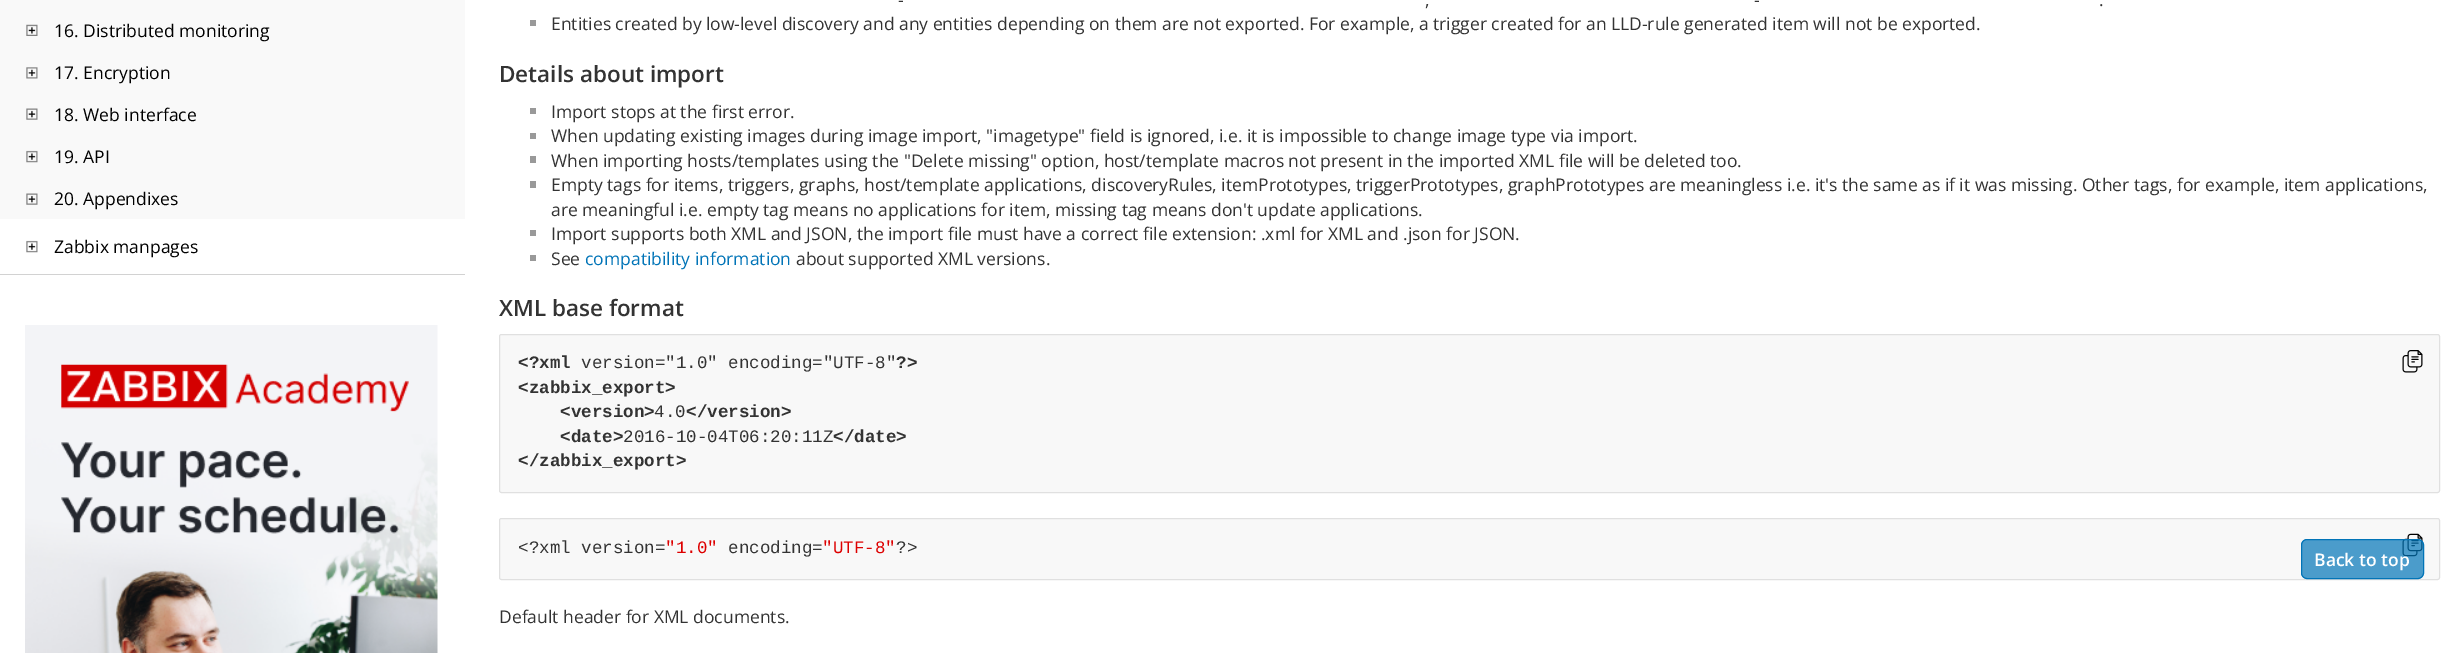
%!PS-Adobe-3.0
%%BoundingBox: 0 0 2448 653
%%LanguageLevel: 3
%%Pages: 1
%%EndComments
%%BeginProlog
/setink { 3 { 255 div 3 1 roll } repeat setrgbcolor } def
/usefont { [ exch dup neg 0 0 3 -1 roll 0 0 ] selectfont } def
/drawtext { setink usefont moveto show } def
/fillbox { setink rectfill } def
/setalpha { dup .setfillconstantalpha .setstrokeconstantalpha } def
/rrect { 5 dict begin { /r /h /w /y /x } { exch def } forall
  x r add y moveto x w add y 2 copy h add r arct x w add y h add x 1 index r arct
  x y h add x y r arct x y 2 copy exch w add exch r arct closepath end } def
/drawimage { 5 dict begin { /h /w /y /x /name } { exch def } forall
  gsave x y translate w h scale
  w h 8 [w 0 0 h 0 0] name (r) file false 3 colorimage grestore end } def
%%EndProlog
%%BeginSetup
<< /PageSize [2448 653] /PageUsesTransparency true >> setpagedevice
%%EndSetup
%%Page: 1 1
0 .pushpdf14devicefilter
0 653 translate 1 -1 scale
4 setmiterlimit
0 0 2448 653 255 255 255 fillbox
0 0 465 219 249 249 249 fillbox
(assets/img1.rgb) 26 24 12 12 drawimage
(16. Distributed monitoring) 54 37 /OpenSans-Regular 17.5 0 0 0 drawtext
(assets/img2.rgb) 26 67 12 12 drawimage
(17. Encryption) 54 79 /OpenSans-Regular 17.5 0 0 0 drawtext
(assets/img3.rgb) 26 108 12 12 drawimage
(18. Web interface) 54 121 /OpenSans-Regular 17.5 0 0 0 drawtext
(assets/img4.rgb) 26 150 12 13 drawimage
(19. API) 54 163 /OpenSans-Regular 17.5 0 0 0 drawtext
(assets/img3.rgb) 26 193 12 12 drawimage
(20. Appendixes) 54 205 /OpenSans-Regular 17.5 0 0 0 drawtext
0 274 465 1 210 210 210 fillbox
(assets/img5.rgb) 26 240 12 13 drawimage
(Zabbix manpages) 54 253 /OpenSans-Regular 17.5 0 0 0 drawtext
(assets/img6.rgb) 25 325 413 328 drawimage
(-) 898 6 /OpenSans-Regular 17.5 51 51 51 drawtext
(-) 1754 6 /OpenSans-Regular 17.5 51 51 51 drawtext
(,) 1425 6 /OpenSans-Regular 17.5 51 51 51 drawtext
(.) 2099 6 /OpenSans-Regular 17.5 51 51 51 drawtext
530 20 6 6 153 153 153 fillbox
(Entities created by low-level discovery and any entities depending on them are not exported. For example, a trigger created for an LLD-rule generated item will not be exported.) 551 30 /OpenSans-Regular 17.5 51 51 51 drawtext
(Details about import) 499 82 /OpenSans-SemiBold 22.5 51 51 51 drawtext
530 108 6 6 153 153 153 fillbox
(Import stops at the first error.) 551 118 /OpenSans-Regular 17.5 51 51 51 drawtext
530 133 6 6 153 153 153 fillbox
(When updating existing images during image import, "imagetype" field is ignored, i.e. it is impossible to change image type via import.) 551 142 /OpenSans-Regular 17.5 51 51 51 drawtext
530 156 6 7 153 153 153 fillbox
(When importing hosts/templates using the "Delete missing" option, host/template macros not present in the imported XML file will be deleted too.) 551 167 /OpenSans-Regular 17.5 51 51 51 drawtext
530 181 6 7 153 153 153 fillbox
(Empty tags for items, triggers, graphs, host/template applications, discoveryRules, itemPrototypes, triggerPrototypes, graphPrototypes are meaningless i.e. it's the same as if it was missing. Other tags, for example, item applications,) 551 191 /OpenSans-Regular 17.5 51 51 51 drawtext
(are meaningful i.e. empty tag means no applications for item, missing tag means don't update applications.) 551 216 /OpenSans-Regular 17.5 51 51 51 drawtext
530 230 6 6 153 153 153 fillbox
(Import supports both XML and JSON, the import file must have a correct file extension: .xml for XML and .json for JSON.) 551 240 /OpenSans-Regular 17.5 51 51 51 drawtext
530 255 6 6 153 153 153 fillbox
(See) 551 265 /OpenSans-Regular 17.5 51 51 51 drawtext
(compatibility information) 585 265 /OpenSans-Regular 17.5 1 116 183 drawtext
(about supported XML versions.) 796 265 /OpenSans-Regular 17.5 51 51 51 drawtext
(XML base format) 499 316 /OpenSans-SemiBold 22.5 51 51 51 drawtext
248 248 248 setink
499.5 334.5 1940 158 2 rrect gsave fill grestore
224 224 224 setink
stroke
(<?xml) 518 368 /LiberationMono-Bold 17.5 51 51 51 drawtext
(version="1.0" encoding="UTF-8") 581 368 /LiberationMono-Regular 17.5 51 51 51 drawtext
(?>) 896 368 /LiberationMono-Bold 17.5 51 51 51 drawtext
(<zabbix_export>) 518 393 /LiberationMono-Bold 17.5 51 51 51 drawtext
(<version>) 560 417 /LiberationMono-Bold 17.5 51 51 51 drawtext
(4.0) 654 417 /LiberationMono-Regular 17.5 51 51 51 drawtext
(</version>) 686 417 /LiberationMono-Bold 17.5 51 51 51 drawtext
(<date>) 560 442 /LiberationMono-Bold 17.5 51 51 51 drawtext
(2016-10-04T06:20:11Z) 623 442 /LiberationMono-Regular 17.5 51 51 51 drawtext
(</date>) 833 442 /LiberationMono-Bold 17.5 51 51 51 drawtext
(</zabbix_export>) 518 466 /LiberationMono-Bold 17.5 51 51 51 drawtext
(assets/img7.rgb) 2402 350 21 23 drawimage
248 248 248 setink
499.5 518.5 1940 61 2 rrect gsave fill grestore
224 224 224 setink
stroke
(<?xml version=) 518 553 /LiberationMono-Regular 17.5 51 51 51 drawtext
("1.0") 665 553 /LiberationMono-Regular 17.5 221 0 0 drawtext
(encoding=) 728 553 /LiberationMono-Regular 17.5 51 51 51 drawtext
("UTF-8") 822 553 /LiberationMono-Regular 17.5 221 0 0 drawtext
(?>) 896 553 /LiberationMono-Regular 17.5 51 51 51 drawtext
(assets/img8.rgb) 2402 533 21 24 drawimage
(Default header for XML documents.) 499 623 /OpenSans-Regular 17.5 51 51 51 drawtext
0.7 setalpha
2 117 184 setink
2301.5 539.5 122 39 5.5 rrect fill
1 setalpha
1 116 183 setink
2301.5 539.5 122 39 5.5 rrect stroke
(Back to top) 2314 566 /OpenSans-SemiBold 17.5 255 255 255 drawtext
.poppdf14devicefilter showpage
%%EOF
